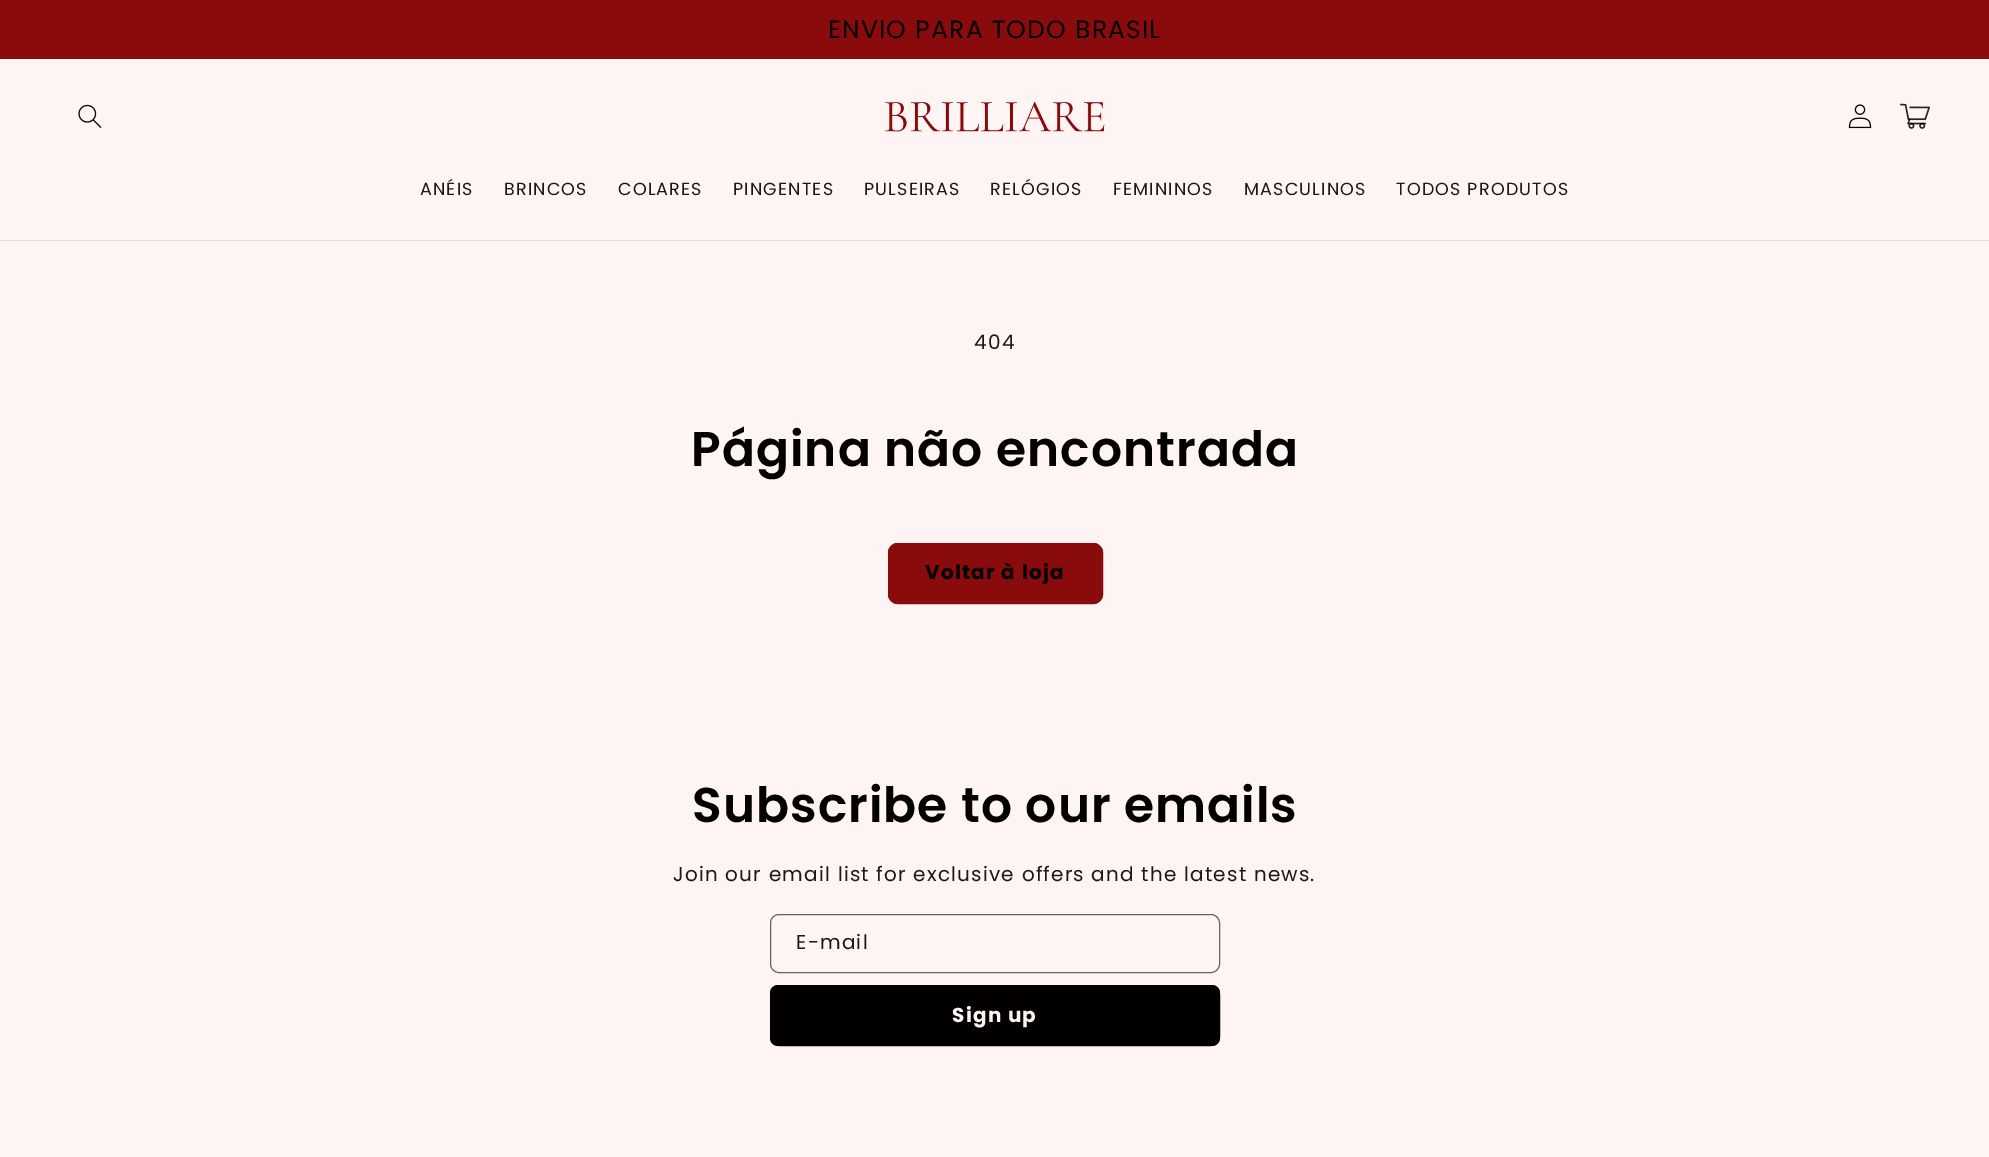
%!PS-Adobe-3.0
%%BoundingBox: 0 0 1989 1157
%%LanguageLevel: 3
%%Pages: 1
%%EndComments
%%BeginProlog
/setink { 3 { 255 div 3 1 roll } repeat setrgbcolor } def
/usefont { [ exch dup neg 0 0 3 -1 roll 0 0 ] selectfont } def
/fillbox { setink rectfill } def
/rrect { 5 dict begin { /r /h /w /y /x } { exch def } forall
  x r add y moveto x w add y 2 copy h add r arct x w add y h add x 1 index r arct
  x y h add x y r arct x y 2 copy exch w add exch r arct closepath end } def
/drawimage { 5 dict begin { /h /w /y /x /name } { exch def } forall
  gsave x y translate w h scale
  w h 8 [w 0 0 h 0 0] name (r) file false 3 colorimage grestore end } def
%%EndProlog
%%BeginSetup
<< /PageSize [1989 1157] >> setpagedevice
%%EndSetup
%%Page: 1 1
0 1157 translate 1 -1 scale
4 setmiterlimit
0 0 1989 1157 255 244 244 fillbox
0 0 1989 58 138 11 11 fillbox
0 58 1989 1 127 10 10 fillbox
/Poppins-Regular 25 usefont
3 0 0 setink
828 38 moveto 1.25 0 (ENVIO PARA TODO BRASIL) ashow
0 240 1989 1 235 224 224 fillbox
(assets/img1.rgb) 78 104 24 24 drawimage
(assets/img2.rgb) 885 101 221 34 drawimage
(assets/img3.rgb) 1848 104 24 25 drawimage
(assets/img4.rgb) 1900 103 30 26 drawimage
/Poppins-Regular 17.5 usefont
28 24 24 setink
420 195 moveto 1.2 0 (ANÉIS) ashow
504 195 moveto 1.2 0 (BRINCOS) ashow
618 195 moveto 1.2 0 (COLARES) ashow
733 195 moveto 1.2 0 (PINGENTES) ashow
864 195 moveto 1.2 0 (PULSEIRAS) ashow
990 195 moveto 1.2 0 (RELÓGIOS) ashow
1113 195 moveto 1.2 0 (FEMININOS) ashow
1244 195 moveto 1.2 0 (MASCULINOS) ashow
1396 195 moveto 1.2 0 (TODOS PRODUTOS) ashow
/Poppins-Regular 20 usefont
974 349 moveto 1.2 0 (404) ashow
/Poppins-SemiBold 48.75 usefont
3 0 0 setink
691 466 moveto 1 0 (Página não encontrada) ashow
138 11 11 setink
888 543 215 61 10 rrect fill
3 setlinewidth
889.5 544.5 212 58 8.5 rrect stroke
/Poppins-Bold 20 usefont
3 0 0 setink
925 579 moveto 1.25 0 (Voltar à loja) ashow
/Poppins-SemiBold 48.75 usefont
692 822 moveto 1 0 (Subscribe to our emails) ashow
/Poppins-Regular 20 usefont
28 24 24 setink
673 881 moveto 1.2 0 (Join our email list for exclusive offers and the latest news.) ashow
104 98 98 setink
1 setlinewidth
770.5 914.5 449 58 8.5 rrect stroke
28 24 24 setink
796 949 moveto 1.25 0 (E-mail) ashow
3 0 0 setink
3 setlinewidth
771.5 986.5 447 58 8.5 rrect stroke
770 985 450 61 8 rrect fill
/Poppins-Bold 20 usefont
255 244 244 setink
952 1022 moveto 1.25 0 (Sign up) ashow
showpage
%%EOF
